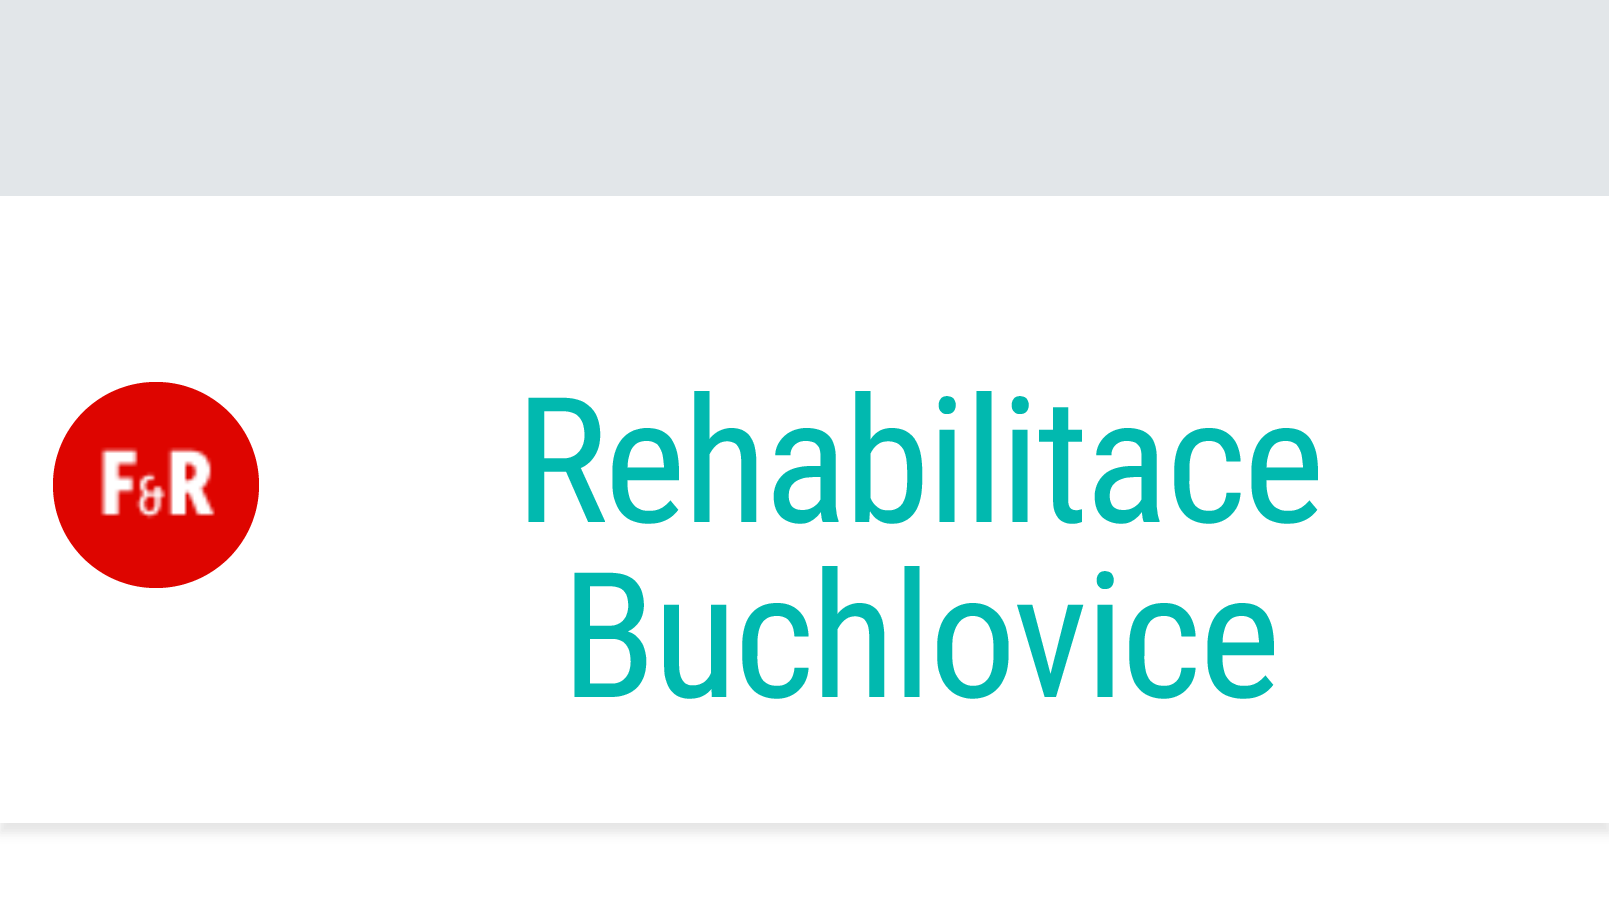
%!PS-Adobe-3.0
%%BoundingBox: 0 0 1609 899
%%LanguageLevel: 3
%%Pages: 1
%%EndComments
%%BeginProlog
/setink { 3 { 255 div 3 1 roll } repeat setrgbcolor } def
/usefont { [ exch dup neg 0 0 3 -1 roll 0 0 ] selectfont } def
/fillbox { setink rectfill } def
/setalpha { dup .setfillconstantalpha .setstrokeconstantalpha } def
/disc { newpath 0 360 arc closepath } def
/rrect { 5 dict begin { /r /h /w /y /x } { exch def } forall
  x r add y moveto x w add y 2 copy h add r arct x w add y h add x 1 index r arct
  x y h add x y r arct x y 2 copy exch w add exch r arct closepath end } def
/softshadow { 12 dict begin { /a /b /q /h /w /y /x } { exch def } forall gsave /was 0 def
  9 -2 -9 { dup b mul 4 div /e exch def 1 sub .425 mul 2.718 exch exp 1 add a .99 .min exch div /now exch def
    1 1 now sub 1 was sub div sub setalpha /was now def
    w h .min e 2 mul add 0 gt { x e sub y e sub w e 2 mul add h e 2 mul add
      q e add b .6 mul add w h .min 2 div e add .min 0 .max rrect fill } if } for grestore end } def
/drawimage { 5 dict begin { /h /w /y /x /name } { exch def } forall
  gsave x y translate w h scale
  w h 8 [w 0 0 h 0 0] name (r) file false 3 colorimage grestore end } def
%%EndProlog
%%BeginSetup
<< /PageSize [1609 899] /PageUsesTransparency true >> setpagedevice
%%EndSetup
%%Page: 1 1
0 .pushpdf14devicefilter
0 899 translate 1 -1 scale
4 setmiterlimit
0 0 1609 899 226 230 233 fillbox
0 196 1609 703 255 255 255 fillbox
222 5 0 setink
156 485 103 disc fill
(assets/img1.rgb) 100 447 115 73 drawimage
/RobotoCondensed-Regular 175 usefont
1 185 175 setink
515 522 moveto -3.5 0 (Rehabilitace) ashow
561 697 moveto -3.5 0 (Buchlovice) ashow
gsave
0 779 moveto 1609 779 lineto 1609 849 lineto 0 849 lineto closepath 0 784 moveto 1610 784 lineto 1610 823 lineto 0 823 lineto closepath eoclip newpath
0 0 0 setink
0 795 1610 38 0 5 0.1 softshadow
grestore
.poppdf14devicefilter showpage
%%EOF
